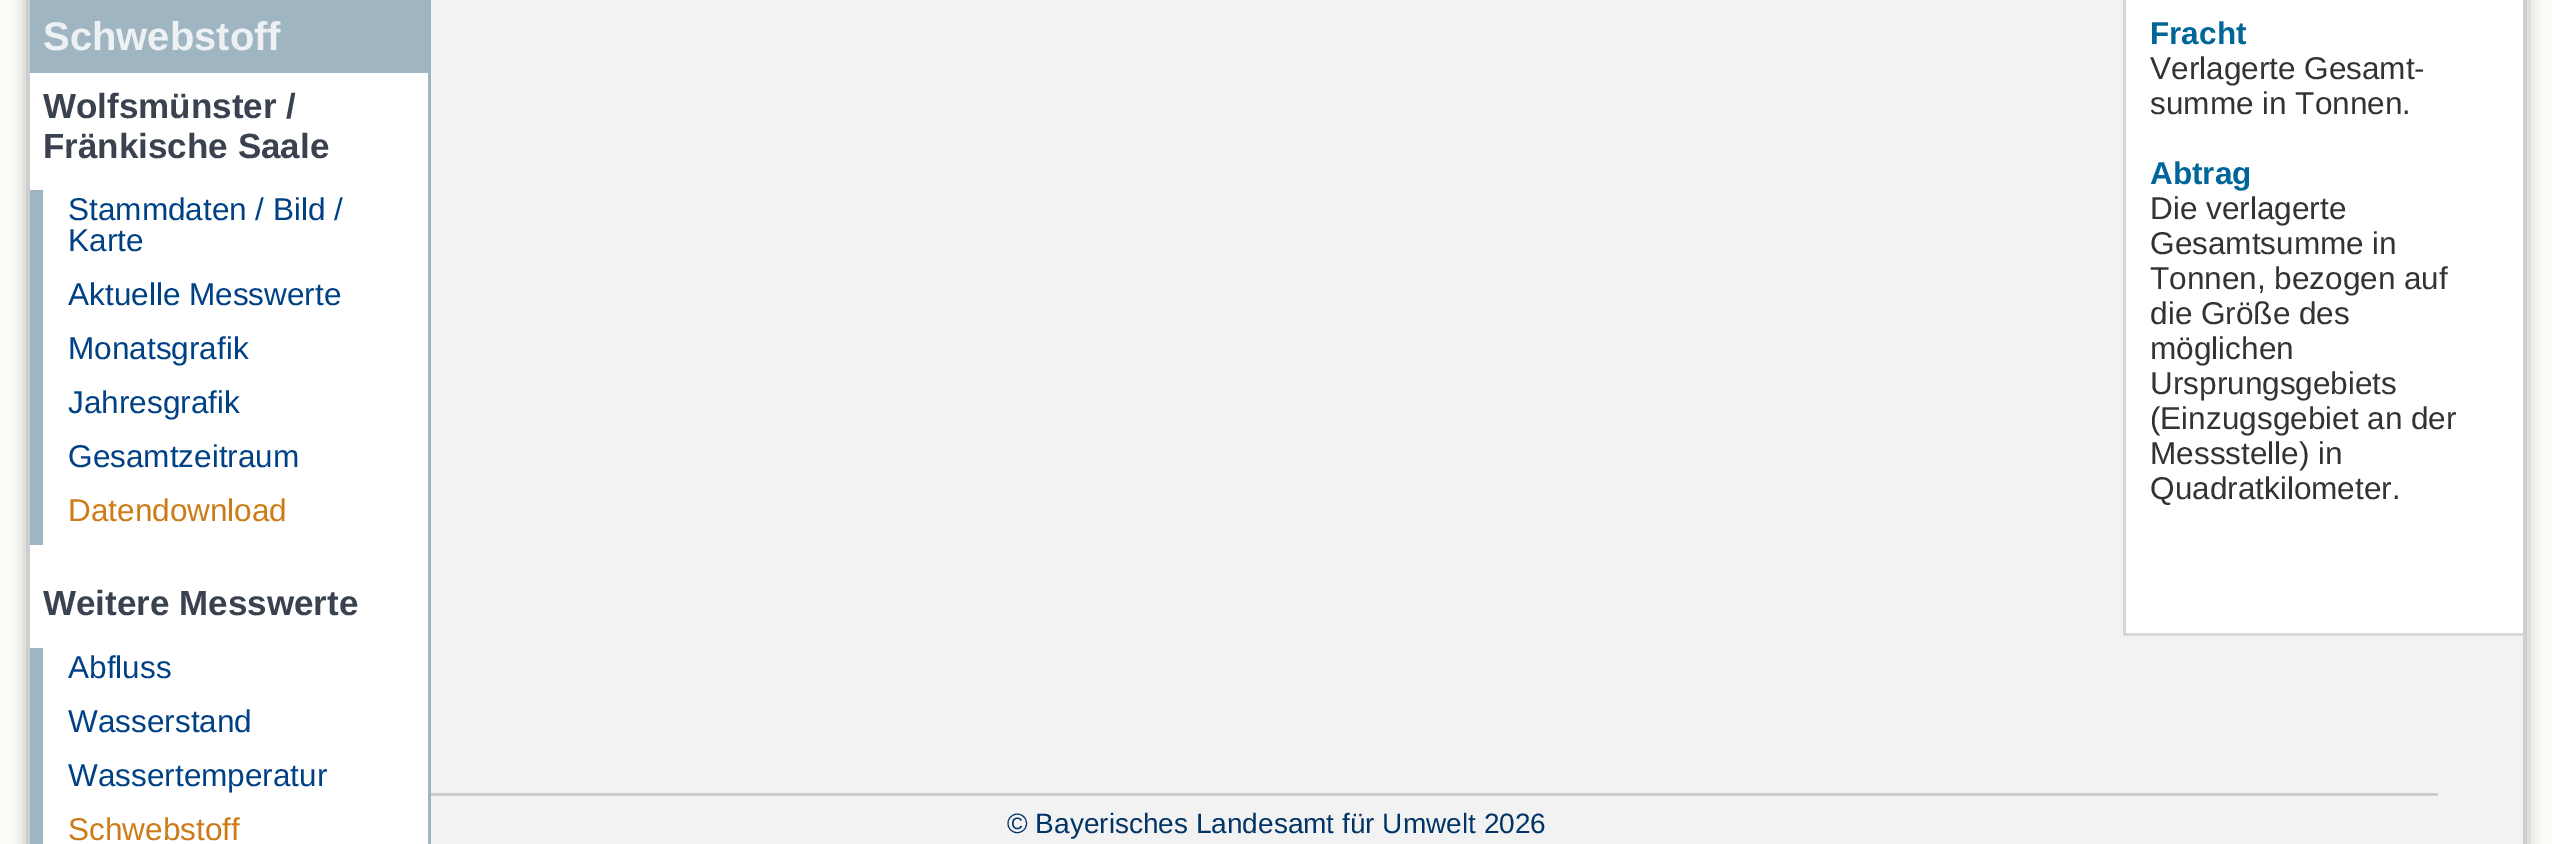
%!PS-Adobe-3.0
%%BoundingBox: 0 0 2552 844
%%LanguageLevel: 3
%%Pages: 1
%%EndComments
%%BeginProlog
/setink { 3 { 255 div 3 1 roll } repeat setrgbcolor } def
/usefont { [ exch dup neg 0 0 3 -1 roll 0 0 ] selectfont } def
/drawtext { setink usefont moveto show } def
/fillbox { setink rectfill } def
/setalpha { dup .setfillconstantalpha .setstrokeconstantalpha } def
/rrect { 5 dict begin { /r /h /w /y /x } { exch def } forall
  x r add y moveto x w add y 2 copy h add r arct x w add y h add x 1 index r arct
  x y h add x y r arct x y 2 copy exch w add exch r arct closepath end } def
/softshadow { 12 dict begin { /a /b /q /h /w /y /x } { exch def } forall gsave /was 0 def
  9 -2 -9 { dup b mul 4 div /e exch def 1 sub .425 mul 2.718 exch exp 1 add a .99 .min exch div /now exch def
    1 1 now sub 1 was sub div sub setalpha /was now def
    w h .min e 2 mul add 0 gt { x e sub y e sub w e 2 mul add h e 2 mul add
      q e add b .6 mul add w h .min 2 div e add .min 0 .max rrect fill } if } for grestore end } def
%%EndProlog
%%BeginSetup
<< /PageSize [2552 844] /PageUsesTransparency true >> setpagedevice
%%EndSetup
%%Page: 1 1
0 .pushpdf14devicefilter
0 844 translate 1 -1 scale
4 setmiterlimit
0 0 2552 844 251 251 248 fillbox
0 0 0 setink
28 -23 2497 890 0 7.5 0.35 softshadow
2523 0 3 844 206 207 212 fillbox
28 0 2 844 206 207 212 fillbox
431 0 2092 844 242 242 242 fillbox
30 73 398 771 255 255 255 fillbox
30 0 400 3 159 181 193 fillbox
428 0 3 844 159 181 193 fillbox
30 3 398 70 159 181 193 fillbox
(Schwebstoff) 43 50 /LiberationSans-Bold 40 237 241 243 drawtext
(Wolfsmünster /) 43 118 /LiberationSans-Bold 35 59 66 79 drawtext
(Fränkische Saale) 43 158 /LiberationSans-Bold 35 59 66 79 drawtext
30 190 13 355 159 181 193 fillbox
(Stammdaten / Bild /) 68 220 /LiberationSans-Regular 31.5 0 65 133 drawtext
(Karte) 68 251 /LiberationSans-Regular 31.5 0 65 133 drawtext
(Aktuelle Messwerte) 68 305 /LiberationSans-Regular 31.5 0 65 133 drawtext
(Monatsgrafik) 68 359 /LiberationSans-Regular 31.5 0 65 133 drawtext
(Jahresgrafik) 68 413 /LiberationSans-Regular 31.5 0 65 133 drawtext
(Gesamtzeitraum) 68 467 /LiberationSans-Regular 31.5 0 65 133 drawtext
(Datendownload) 68 521 /LiberationSans-Regular 31.5 204 123 23 drawtext
(Weitere Messwerte) 43 615 /LiberationSans-Bold 35 59 66 79 drawtext
30 648 13 196 159 181 193 fillbox
(Abfluss) 68 678 /LiberationSans-Regular 31.5 0 65 133 drawtext
(Wasserstand) 68 732 /LiberationSans-Regular 31.5 0 65 133 drawtext
(Wassertemperatur) 68 786 /LiberationSans-Regular 31.5 0 65 133 drawtext
(Schwebstoff) 68 840 /LiberationSans-Regular 31.5 204 123 23 drawtext
2126 0 397 633 255 255 255 fillbox
2123 633 400 3 215 215 215 fillbox
2123 0 3 635 215 215 215 fillbox
(Fracht) 2150 44 /LiberationSans-Bold 31.5 0 102 153 drawtext
(Verlagerte Gesamt-) 2150 79 /LiberationSans-Regular 31.5 51 51 51 drawtext
(summe in Tonnen.) 2150 114 /LiberationSans-Regular 31.5 51 51 51 drawtext
(Abtrag) 2150 184 /LiberationSans-Bold 31.5 0 102 153 drawtext
(Die verlagerte) 2150 219 /LiberationSans-Regular 31.5 51 51 51 drawtext
(Gesamtsumme in) 2150 254 /LiberationSans-Regular 31.5 51 51 51 drawtext
(Tonnen, bezogen auf) 2150 289 /LiberationSans-Regular 31.5 51 51 51 drawtext
(die Größe des) 2150 324 /LiberationSans-Regular 31.5 51 51 51 drawtext
(möglichen) 2150 359 /LiberationSans-Regular 31.5 51 51 51 drawtext
(Ursprungsgebiets) 2150 394 /LiberationSans-Regular 31.5 51 51 51 drawtext
(\(Einzugsgebiet an der) 2150 429 /LiberationSans-Regular 31.5 51 51 51 drawtext
(Messstelle\) in) 2150 464 /LiberationSans-Regular 31.5 51 51 51 drawtext
(Quadratkilometer.) 2150 499 /LiberationSans-Regular 31.5 51 51 51 drawtext
431 793 2007 3 204 204 204 fillbox
(© Bayerisches Landesamt für Umwelt 2026) 1007 833 /LiberationSans-Regular 28 0 51 102 drawtext
.poppdf14devicefilter showpage
%%EOF
